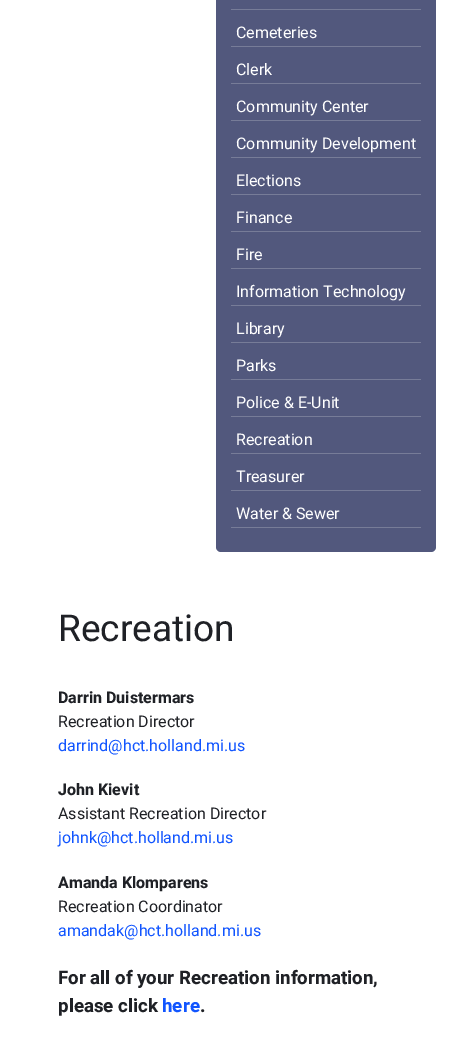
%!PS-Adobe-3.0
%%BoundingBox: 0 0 470 1063
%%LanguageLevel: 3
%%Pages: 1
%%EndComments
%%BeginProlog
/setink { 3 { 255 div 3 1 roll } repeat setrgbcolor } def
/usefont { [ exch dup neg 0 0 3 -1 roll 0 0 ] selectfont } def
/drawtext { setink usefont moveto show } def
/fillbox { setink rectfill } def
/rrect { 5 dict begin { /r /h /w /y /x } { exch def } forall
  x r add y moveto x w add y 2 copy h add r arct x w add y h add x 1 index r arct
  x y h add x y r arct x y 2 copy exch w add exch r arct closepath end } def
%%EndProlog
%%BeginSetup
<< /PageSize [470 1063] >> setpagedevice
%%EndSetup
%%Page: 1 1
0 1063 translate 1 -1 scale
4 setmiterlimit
0 0 470 1063 255 255 255 fillbox
82 88 125 setink
216 -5 220 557 5 rrect fill
231 9 190 1 119 124 152 fillbox
231 46 190 1 119 124 152 fillbox
(Cemeteries) 236 38 /Heebo-Regular 16 255 255 255 drawtext
231 83 190 1 119 124 152 fillbox
(Clerk) 236 75 /Heebo-Regular 16 255 255 255 drawtext
231 120 190 1 119 124 152 fillbox
(Community Center) 236 112 /Heebo-Regular 16 255 255 255 drawtext
231 157 190 1 119 124 152 fillbox
(Community Development) 236 149 /Heebo-Regular 16 255 255 255 drawtext
231 194 190 1 119 124 152 fillbox
(Elections) 236 186 /Heebo-Regular 16 255 255 255 drawtext
231 231 190 1 119 124 152 fillbox
(Finance) 236 223 /Heebo-Regular 16 255 255 255 drawtext
231 268 190 1 119 124 152 fillbox
(Fire) 236 260 /Heebo-Regular 16 255 255 255 drawtext
231 305 190 1 119 124 152 fillbox
(Information Technology) 236 297 /Heebo-Regular 16 255 255 255 drawtext
231 342 190 1 119 124 152 fillbox
(Library) 236 334 /Heebo-Regular 16 255 255 255 drawtext
231 379 190 1 119 124 152 fillbox
(Parks) 236 371 /Heebo-Regular 16 255 255 255 drawtext
231 416 190 1 119 124 152 fillbox
(Police & E-Unit) 236 408 /Heebo-Regular 16 255 255 255 drawtext
231 453 190 1 119 124 152 fillbox
(Recreation) 236 445 /Heebo-Regular 16 255 255 255 drawtext
231 490 190 1 119 124 152 fillbox
(Treasurer) 236 482 /Heebo-Regular 16 255 255 255 drawtext
231 527 190 1 119 124 152 fillbox
(Water & Sewer) 236 519 /Heebo-Regular 16 255 255 255 drawtext
(Recreation) 58 641 /Heebo-Regular 37 31 33 38 drawtext
(Darrin Duistermars) 58 703 /Heebo-Bold 16 31 33 38 drawtext
(Recreation Director) 58 727 /Heebo-Regular 16 31 33 38 drawtext
(darrind@hct.holland.mi.us) 58 751 /Heebo-Regular 16 17 85 255 drawtext
(John Kievit) 58 795 /Heebo-Bold 16 31 33 38 drawtext
(Assistant Recreation Director) 58 819 /Heebo-Regular 16 31 33 38 drawtext
(johnk@hct.holland.mi.us) 58 843 /Heebo-Regular 16 17 85 255 drawtext
(Amanda Klomparens) 58 888 /Heebo-Bold 16 31 33 38 drawtext
(Recreation Coordinator) 58 912 /Heebo-Regular 16 31 33 38 drawtext
(amandak@hct.holland.mi.us) 58 936 /Heebo-Regular 16 17 85 255 drawtext
(For all of your Recreation information,) 58 984 /Heebo-Bold 18.7 31 33 38 drawtext
(please click) 58 1012 /Heebo-Bold 18.7 31 33 38 drawtext
(here) 162 1012 /Heebo-Bold 18.7 17 85 255 drawtext
(.) 200 1012 /Heebo-Bold 18.7 31 33 38 drawtext
showpage
%%EOF
